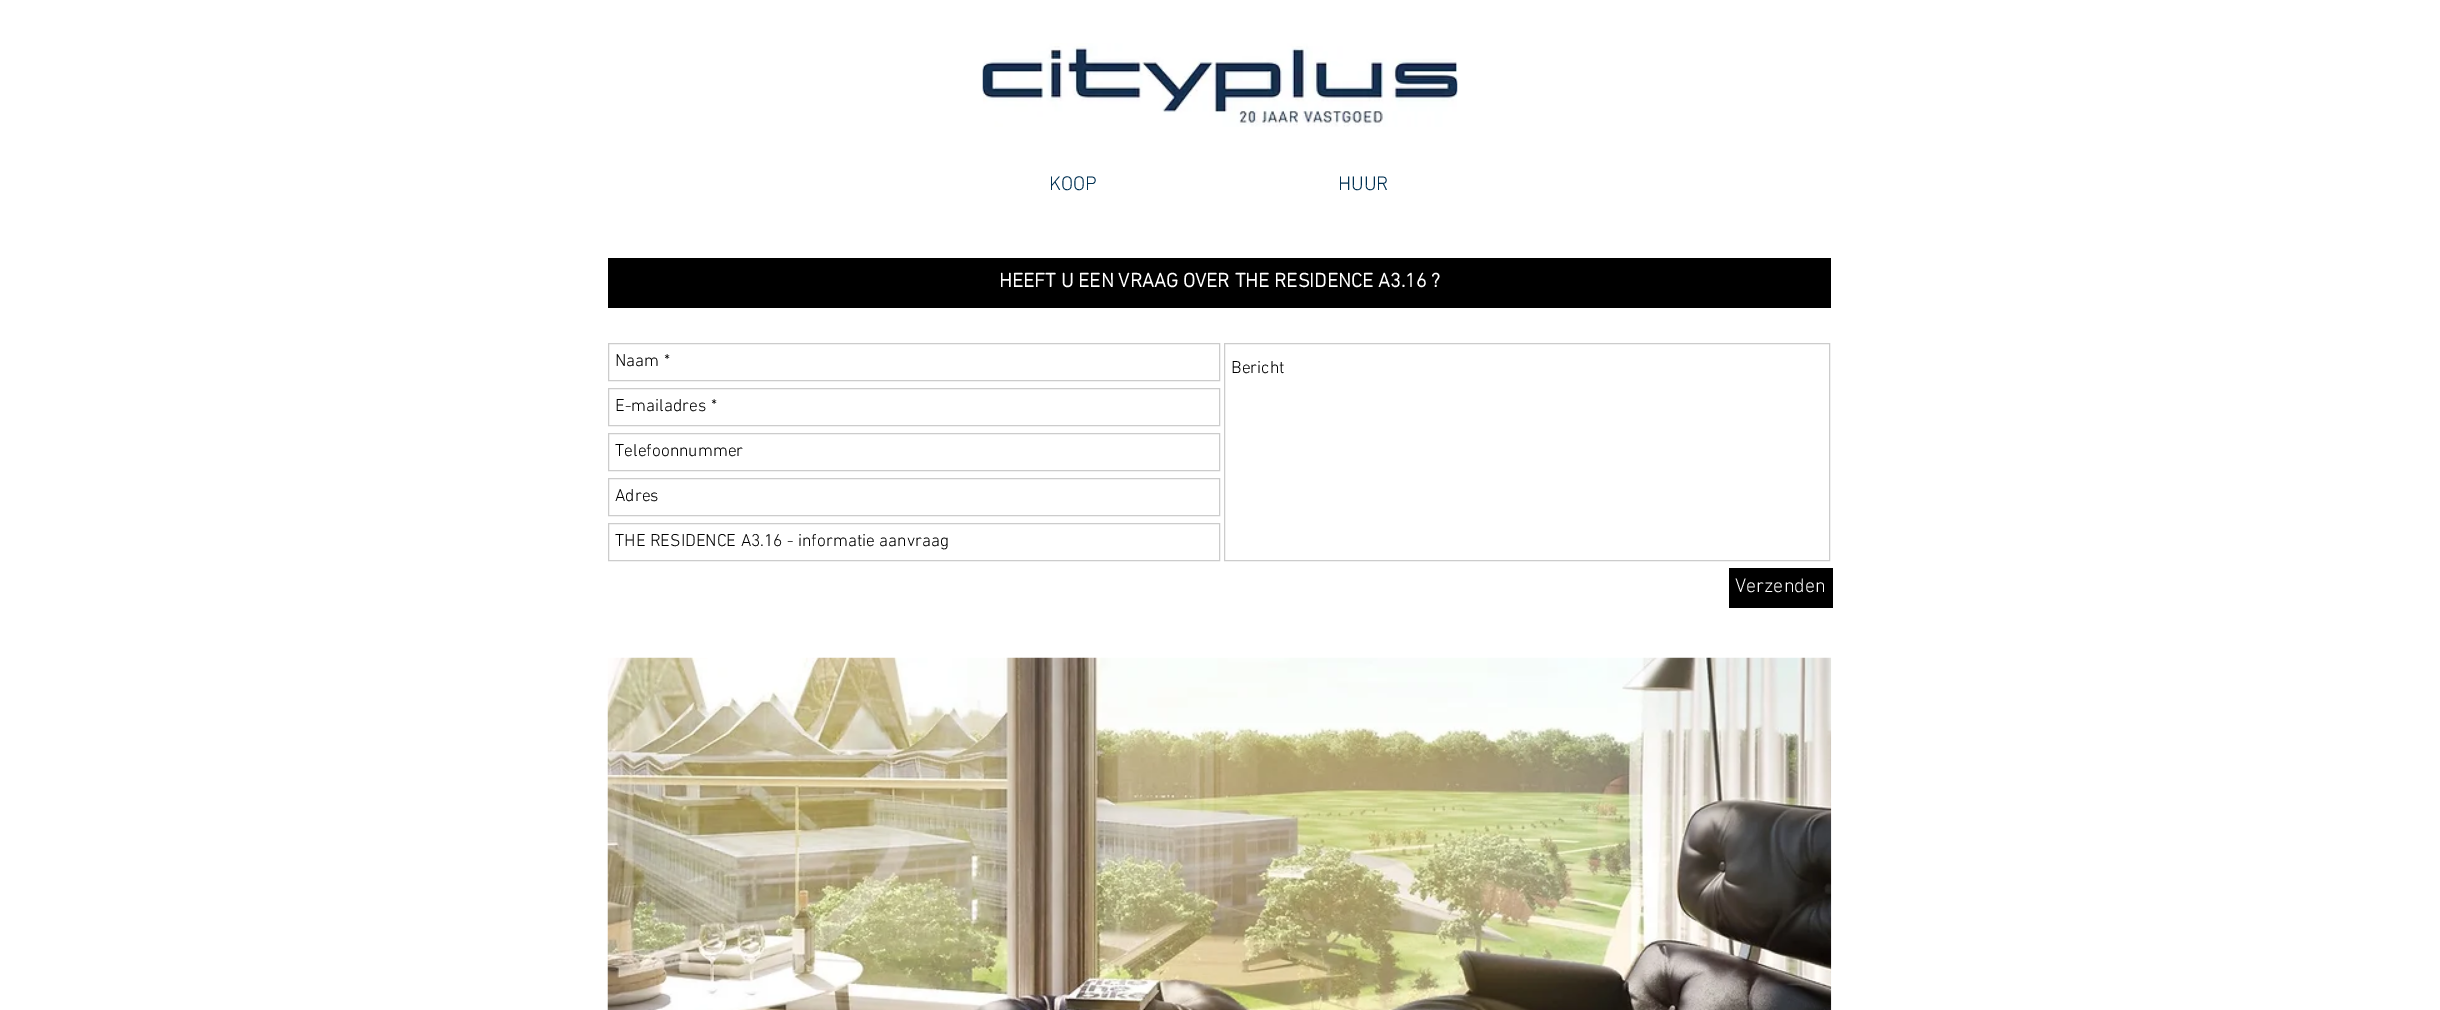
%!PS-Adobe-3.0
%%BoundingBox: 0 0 2440 1010
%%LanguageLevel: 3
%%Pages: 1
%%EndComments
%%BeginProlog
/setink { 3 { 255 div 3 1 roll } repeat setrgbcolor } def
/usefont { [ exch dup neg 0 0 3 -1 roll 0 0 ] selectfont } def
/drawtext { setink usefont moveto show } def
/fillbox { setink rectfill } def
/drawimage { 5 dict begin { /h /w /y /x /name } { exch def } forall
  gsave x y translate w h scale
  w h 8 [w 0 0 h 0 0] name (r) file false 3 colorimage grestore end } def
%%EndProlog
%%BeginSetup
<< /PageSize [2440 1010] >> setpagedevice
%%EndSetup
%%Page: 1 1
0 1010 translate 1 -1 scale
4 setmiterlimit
0 0 2440 1010 255 255 255 fillbox
(assets/img1.rgb) 982 43 476 84 drawimage
(KOOP) 1049 190 /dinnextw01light-Light 20 0 48 82 drawtext
(HUUR) 1338 190 /dinnextw01light-Light 20 0 48 82 drawtext
608 258 1223 50 0 0 0 fillbox
(HEEFT U EEN VRAAG OVER THE RESIDENCE A3.16 ?) 999 287 /dinnextw01light-Bold 20 255 255 255 drawtext
204 204 204 setink
608.5 343.5 611 37 rectstroke
(Naam *) 615 366 /dinnextw01light-Light 17.5 0 0 0 drawtext
204 204 204 setink
1224.5 343.5 605 217 rectstroke
(Bericht) 1231 373 /dinnextw01light-Light 17.5 0 0 0 drawtext
204 204 204 setink
608.5 388.5 611 37 rectstroke
(E-mailadres *) 615 411 /dinnextw01light-Light 17.5 0 0 0 drawtext
204 204 204 setink
608.5 433.5 611 37 rectstroke
(Telefoonnummer) 615 456 /dinnextw01light-Light 17.5 0 0 0 drawtext
204 204 204 setink
608.5 478.5 611 37 rectstroke
(Adres) 615 501 /dinnextw01light-Light 17.5 0 0 0 drawtext
204 204 204 setink
608.5 523.5 611 37 rectstroke
(THE RESIDENCE A3.16 - informatie aanvraag) 615 546 /dinnextw01light-Light 17.5 0 0 0 drawtext
1729 568 104 40 0 0 0 fillbox
(Verzenden) 1735 592 /dinnextw01light-Light 20 255 255 255 drawtext
(assets/img2.rgb) 607 657 1225 353 drawimage
showpage
%%EOF
